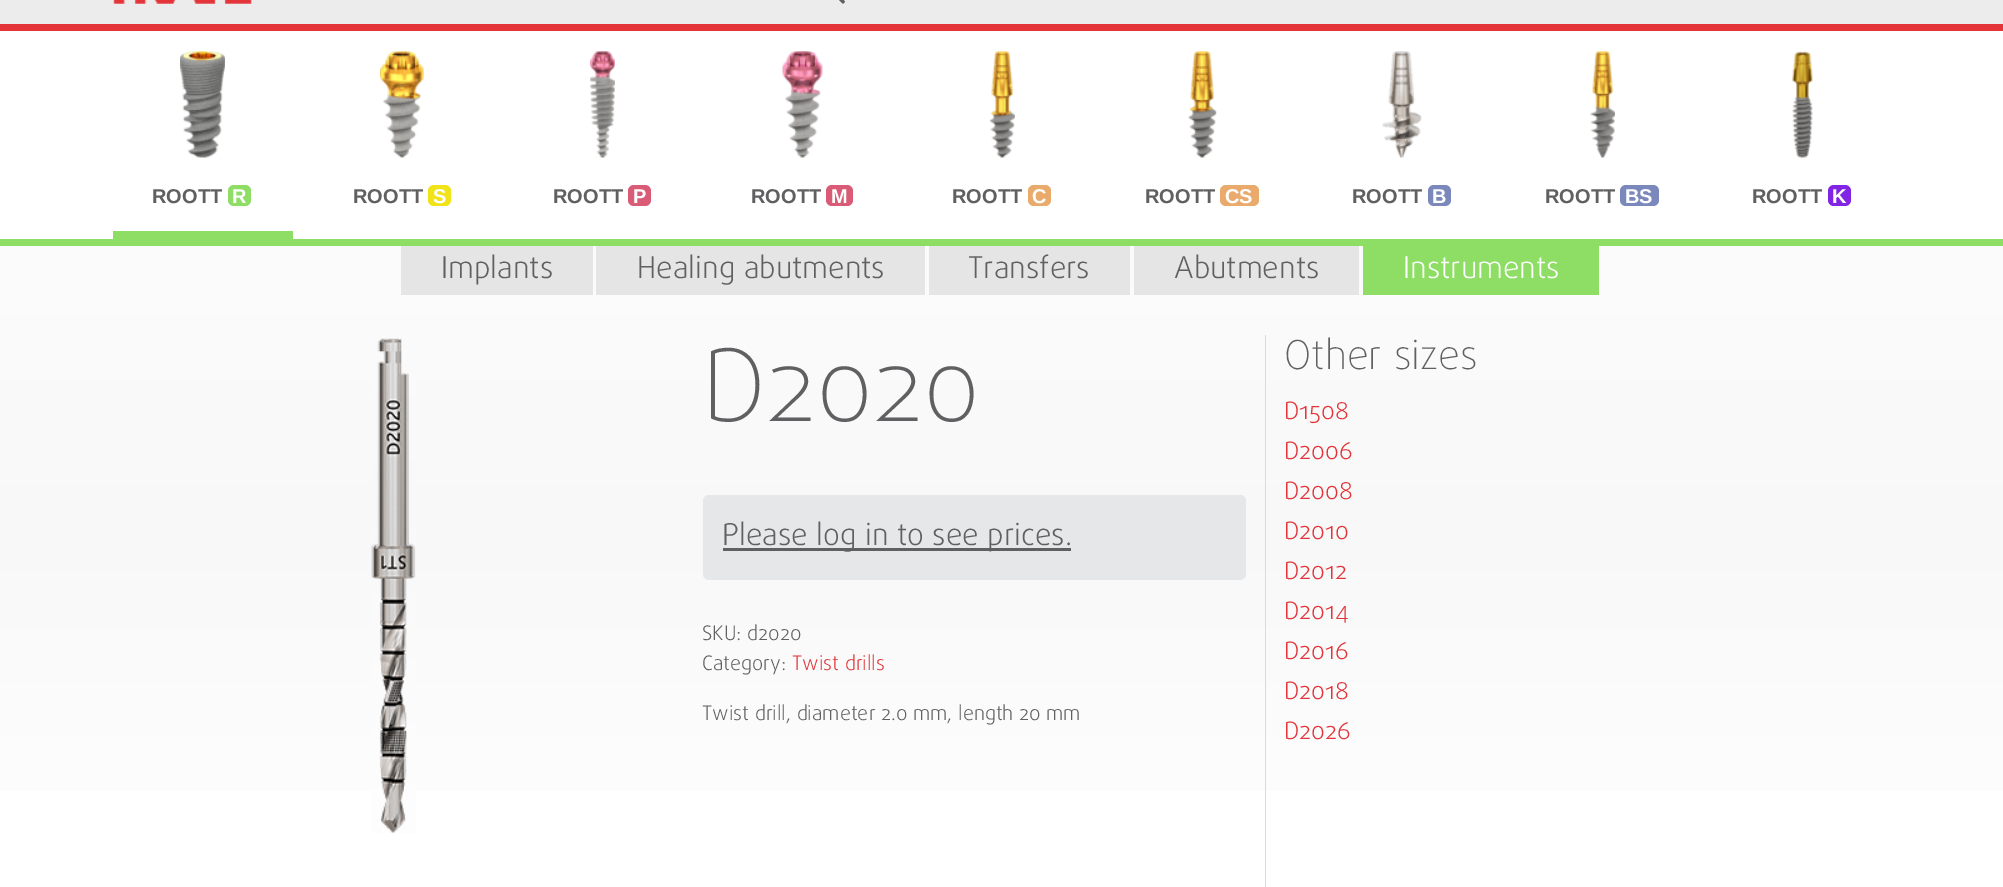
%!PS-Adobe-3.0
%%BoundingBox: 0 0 2003 887
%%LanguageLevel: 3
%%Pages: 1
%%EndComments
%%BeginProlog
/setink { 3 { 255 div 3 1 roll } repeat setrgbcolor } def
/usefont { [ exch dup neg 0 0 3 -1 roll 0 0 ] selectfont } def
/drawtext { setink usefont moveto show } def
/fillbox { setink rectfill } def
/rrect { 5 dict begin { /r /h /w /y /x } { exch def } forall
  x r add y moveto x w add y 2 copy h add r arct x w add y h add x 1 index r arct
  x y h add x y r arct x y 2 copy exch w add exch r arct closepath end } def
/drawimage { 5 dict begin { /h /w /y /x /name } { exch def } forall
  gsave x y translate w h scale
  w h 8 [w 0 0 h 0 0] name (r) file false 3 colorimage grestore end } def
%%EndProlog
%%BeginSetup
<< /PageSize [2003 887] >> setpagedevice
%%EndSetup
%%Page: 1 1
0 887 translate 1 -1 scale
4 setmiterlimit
0 0 2003 887 255 255 255 fillbox
0 0 2003 24 236 236 236 fillbox
0 24 2003 7 227 52 57 fillbox
(assets/img1.rgb) 113 0 139 4 drawimage
(assets/img2.rgb) 839 0 6 4 drawimage
gsave 0 246 moveto 2003 246 lineto 2003 791 lineto 0 791 lineto closepath clip newpath
<< /ShadingType 2 /ColorSpace /DeviceRGB /Coords [1002 31 1002 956] /Extend [true true] /Function << /FunctionType 3 /Domain [0 1] /Functions [<< /FunctionType 2 /Domain [0 1] /C0 [1 1 1] /C1 [0.973 0.973 0.973] /N 1 >> << /FunctionType 2 /Domain [0 1] /C0 [0.973 0.973 0.973] /C1 [1 1 1] /N 1 >>] /Bounds [0.5] /Encode [0 1 0 1] >> >> shfill grestore
0 239 2003 7 142 221 101 fillbox
(assets/img3.rgb) 180 51 45 107 drawimage
113 231 180 8 142 221 101 fillbox
(ROOTT) 152 203 /LiberationSans-Bold 20 96 96 98 drawtext
142 221 101 setink
228 185 23 21 6 rrect fill
(R) 232 203 /LiberationSans-Bold 20 255 255 255 drawtext
(assets/img4.rgb) 380 51 44 107 drawimage
(ROOTT) 353 203 /LiberationSans-Bold 20 96 96 98 drawtext
240 228 25 setink
428 185 23 21 6 rrect fill
(S) 433 203 /LiberationSans-Bold 20 255 255 255 drawtext
(assets/img5.rgb) 590 51 25 107 drawimage
(ROOTT) 553 203 /LiberationSans-Bold 20 96 96 98 drawtext
217 91 117 setink
628 185 23 21 6 rrect fill
(P) 633 203 /LiberationSans-Bold 20 255 255 255 drawtext
(assets/img6.rgb) 782 51 41 107 drawimage
(ROOTT) 751 203 /LiberationSans-Bold 20 96 96 98 drawtext
217 91 117 setink
826 185 27 21 6 rrect fill
(M) 831 203 /LiberationSans-Bold 20 255 255 255 drawtext
(assets/img7.rgb) 990 51 25 107 drawimage
(ROOTT) 952 203 /LiberationSans-Bold 20 96 96 98 drawtext
233 170 108 setink
1028 185 23 21 6 rrect fill
(C) 1032 203 /LiberationSans-Bold 20 255 255 255 drawtext
(assets/img8.rgb) 1188 51 29 107 drawimage
(ROOTT) 1145 203 /LiberationSans-Bold 20 96 96 98 drawtext
233 170 108 setink
1220 185 39 21 6 rrect fill
(CS) 1225 203 /LiberationSans-Bold 20 255 255 255 drawtext
(assets/img9.rgb) 1382 51 40 107 drawimage
(ROOTT) 1352 203 /LiberationSans-Bold 20 96 96 98 drawtext
122 136 187 setink
1428 185 23 21 6 rrect fill
(B) 1432 203 /LiberationSans-Bold 20 255 255 255 drawtext
(assets/img10.rgb) 1590 51 25 107 drawimage
(ROOTT) 1545 203 /LiberationSans-Bold 20 96 96 98 drawtext
122 136 187 setink
1620 185 39 21 6 rrect fill
(BS) 1625 203 /LiberationSans-Bold 20 255 255 255 drawtext
(assets/img11.rgb) 1792 51 21 107 drawimage
(ROOTT) 1752 203 /LiberationSans-Bold 20 96 96 98 drawtext
130 36 227 setink
1828 185 23 21 6 rrect fill
(K) 1832 203 /LiberationSans-Bold 20 255 255 255 drawtext
401 246 192 49 229 229 229 fillbox
(Implants) 441 278 /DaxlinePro-Light 30 96 96 98 drawtext
596 246 329 49 229 229 229 fillbox
(Healing abutments) 637 278 /DaxlinePro-Light 30 96 96 98 drawtext
929 246 201 49 229 229 229 fillbox
(Transfers) 968 278 /DaxlinePro-Light 30 96 96 98 drawtext
1134 246 225 49 229 229 229 fillbox
(Abutments) 1174 278 /DaxlinePro-Light 30 96 96 98 drawtext
1363 246 236 49 142 221 101 fillbox
(Instruments) 1403 278 /DaxlinePro-Light 30 255 255 255 drawtext
(assets/img12.rgb) 371 338 45 495 drawimage
(D2020) 702 421 /DaxlinePro-Thin 100 96 96 98 drawtext
230 231 232 setink
703 495 543 85 6 rrect fill
723 548 348 3 96 96 98 fillbox
(Please log in to see prices.) 722 545 /DaxlinePro-Light 30 96 96 98 drawtext
(SKU: d2020) 702 640 /DaxlinePro-Light 20 96 96 98 drawtext
(Category:) 702 670 /DaxlinePro-Light 20 96 96 98 drawtext
(Twist drills) 792 670 /DaxlinePro-Light 20 227 52 57 drawtext
(Twist drill, diameter 2.0 mm, length 20 mm) 702 720 /DaxlinePro-Light 20 96 96 98 drawtext
1265 335 1 552 218 218 218 fillbox
(Other sizes) 1284 369 /DaxlinePro-Thin 40 96 96 98 drawtext
(D1508) 1284 419 /DaxlinePro-Light 24 227 52 57 drawtext
(D2006) 1284 459 /DaxlinePro-Light 24 227 52 57 drawtext
(D2008) 1284 499 /DaxlinePro-Light 24 227 52 57 drawtext
(D2010) 1284 539 /DaxlinePro-Light 24 227 52 57 drawtext
(D2012) 1284 579 /DaxlinePro-Light 24 227 52 57 drawtext
(D2014) 1284 619 /DaxlinePro-Light 24 227 52 57 drawtext
(D2016) 1284 659 /DaxlinePro-Light 24 227 52 57 drawtext
(D2018) 1284 699 /DaxlinePro-Light 24 227 52 57 drawtext
(D2026) 1284 739 /DaxlinePro-Light 24 227 52 57 drawtext
showpage
%%EOF
